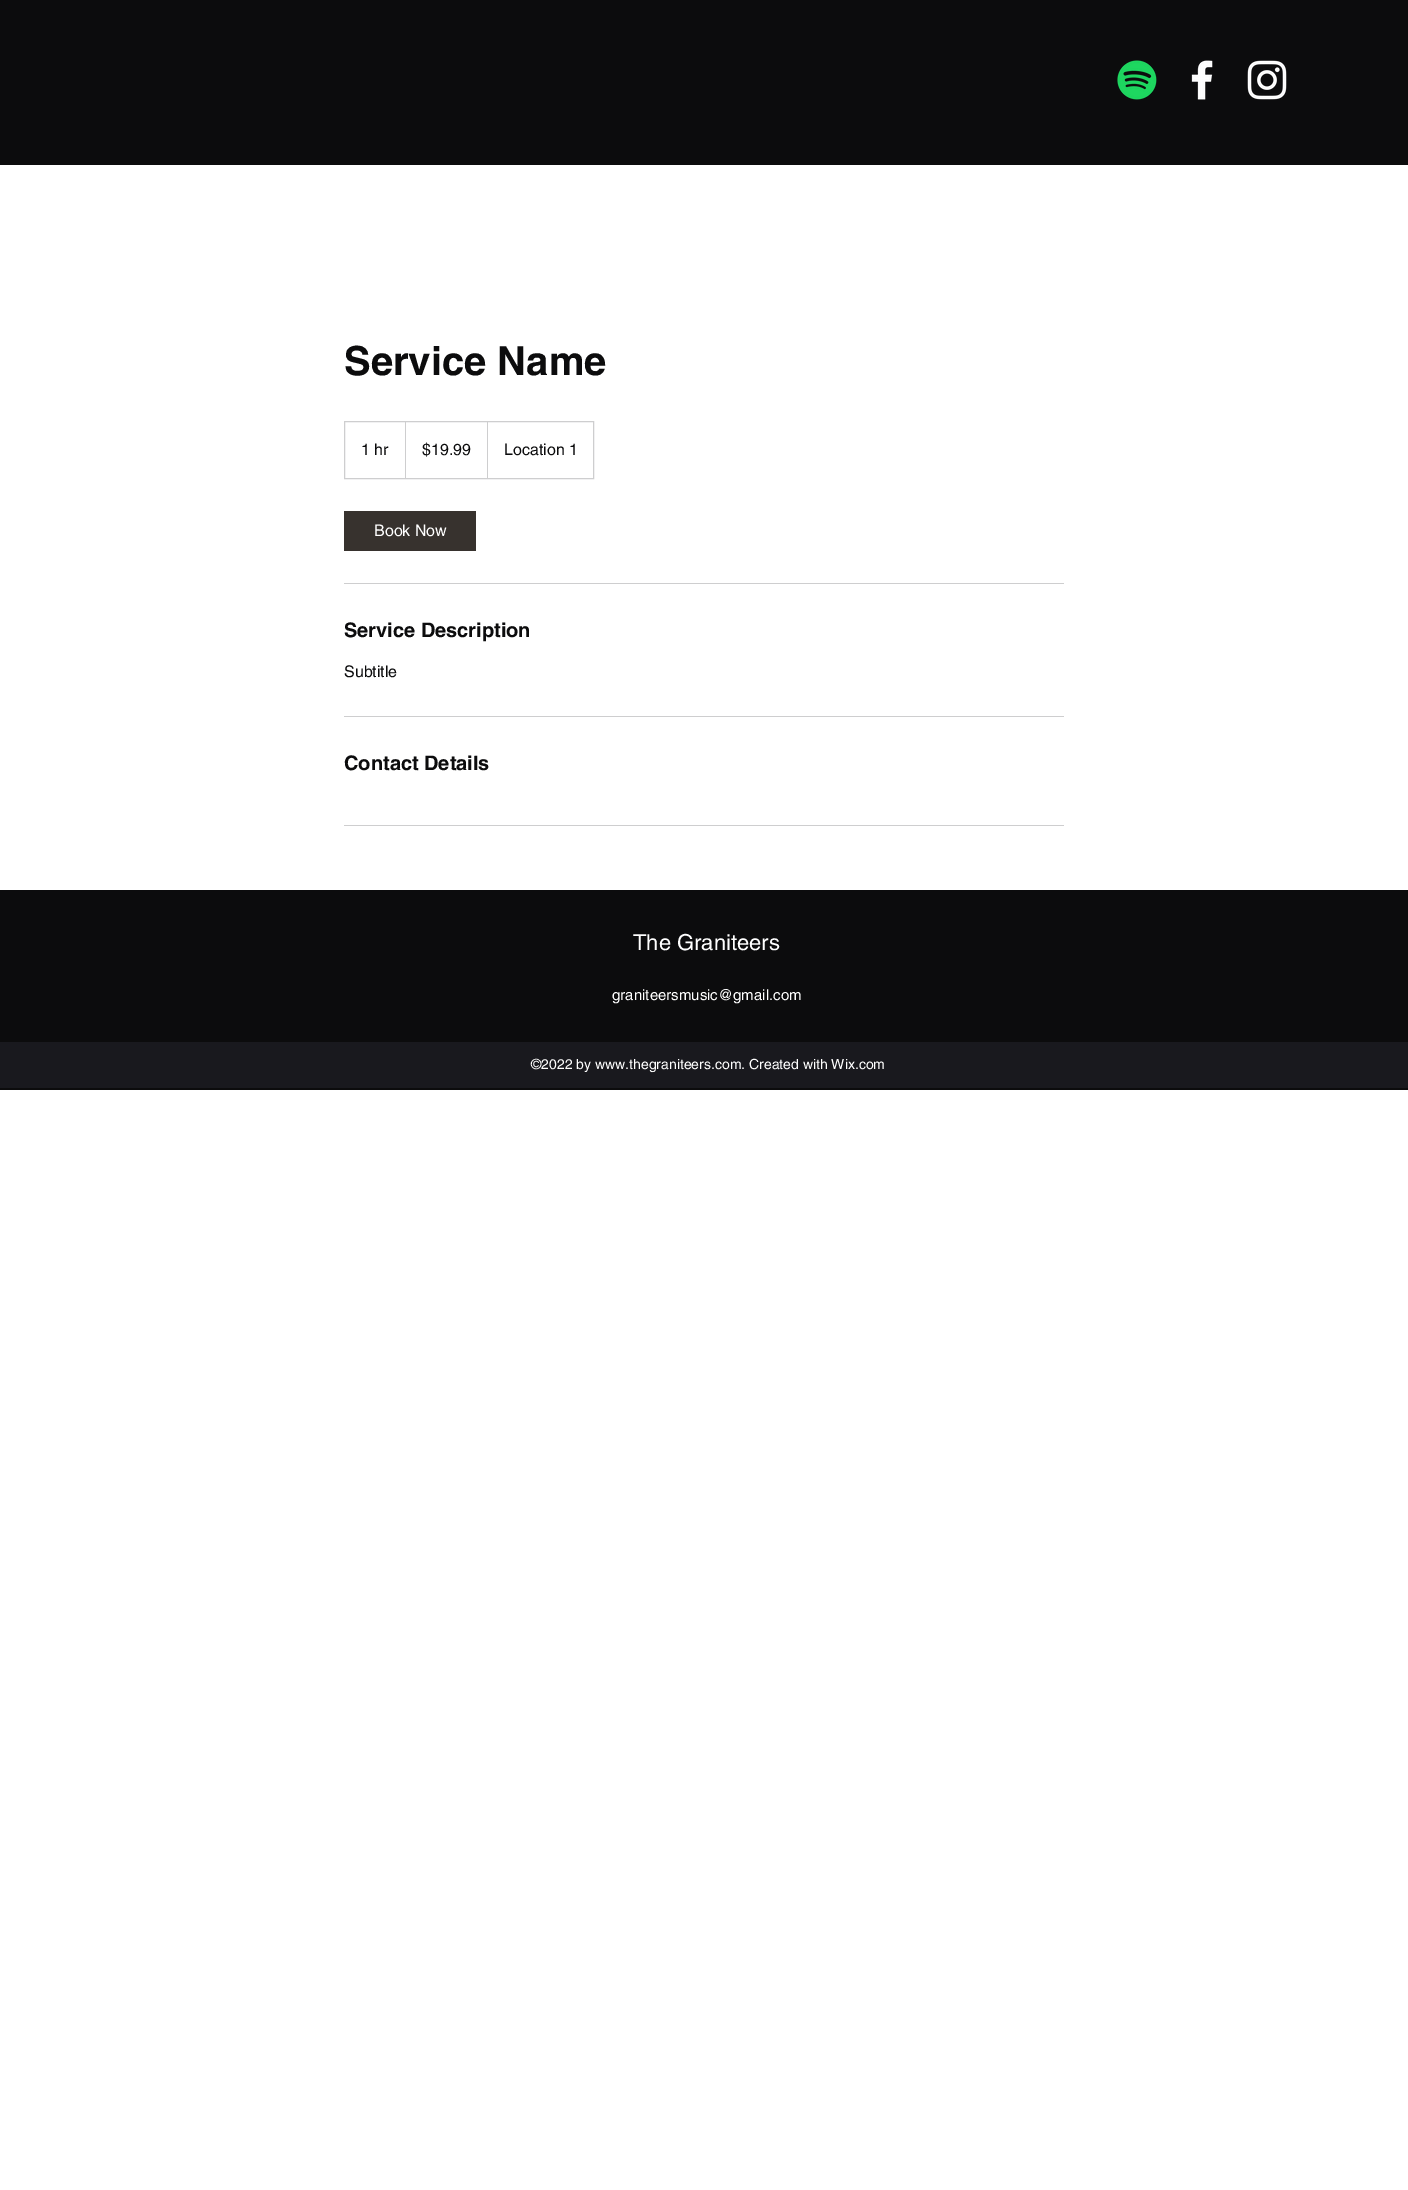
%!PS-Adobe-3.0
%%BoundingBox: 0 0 1408 2190
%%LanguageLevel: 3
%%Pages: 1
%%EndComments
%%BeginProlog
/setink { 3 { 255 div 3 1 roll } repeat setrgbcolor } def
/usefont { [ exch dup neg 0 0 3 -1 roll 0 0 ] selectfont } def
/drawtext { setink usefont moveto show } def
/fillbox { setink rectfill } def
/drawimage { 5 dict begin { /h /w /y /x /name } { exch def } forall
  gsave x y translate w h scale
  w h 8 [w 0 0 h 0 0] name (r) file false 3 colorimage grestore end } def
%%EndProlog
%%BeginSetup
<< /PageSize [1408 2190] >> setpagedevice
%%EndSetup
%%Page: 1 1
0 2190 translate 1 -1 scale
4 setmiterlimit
0 0 1408 2190 255 255 255 fillbox
0 0 1408 165 12 12 13 fillbox
(assets/img1.rgb) 1117 60 40 40 drawimage
(assets/img2.rgb) 1191 60 22 40 drawimage
(assets/img3.rgb) 1247 60 40 40 drawimage
(Service Name) 344 375 /helvetica-Bold 40 12 12 13 drawtext
206 206 207 setink
344.5 421.5 249 57 rectstroke
(1 hr) 361 455 /helvetica-Regular 16 12 12 13 drawtext
206 206 207 setink
405 478 moveto 405 421 lineto 406 422 lineto 406 478 lineto closepath fill
($19.99) 422 455 /helvetica-Regular 16 12 12 13 drawtext
206 206 207 setink
487 478 moveto 487 421 lineto 488 422 lineto 488 478 lineto closepath fill
(Location 1) 504 455 /helvetica-Regular 16 12 12 13 drawtext
344 511 132 40 55 50 46 fillbox
(Book Now) 374 536 /helvetica-Regular 16 255 255 255 drawtext
344 583 720 1 206 206 207 fillbox
(Service Description) 344 637 /helvetica-Bold 20 12 12 13 drawtext
(Subtitle) 344 677 /helvetica-Regular 16 12 12 13 drawtext
344 716 720 1 206 206 207 fillbox
(Contact Details) 344 770 /helvetica-Bold 20 12 12 13 drawtext
344 825 720 1 206 206 207 fillbox
0 890 1408 200 12 12 13 fillbox
(The Graniteers) 633 950 /helvetica-Regular 22 255 255 255 drawtext
(graniteersmusic@gmail.com) 612 1000 /helvetica-Regular 15 255 255 255 drawtext
0 1042 1408 46 25 25 30 fillbox
(©2022 by www.thegraniteers.com. Created with Wix.com) 531 1069 /helvetica-Regular 14 255 255 255 drawtext
showpage
%%EOF
